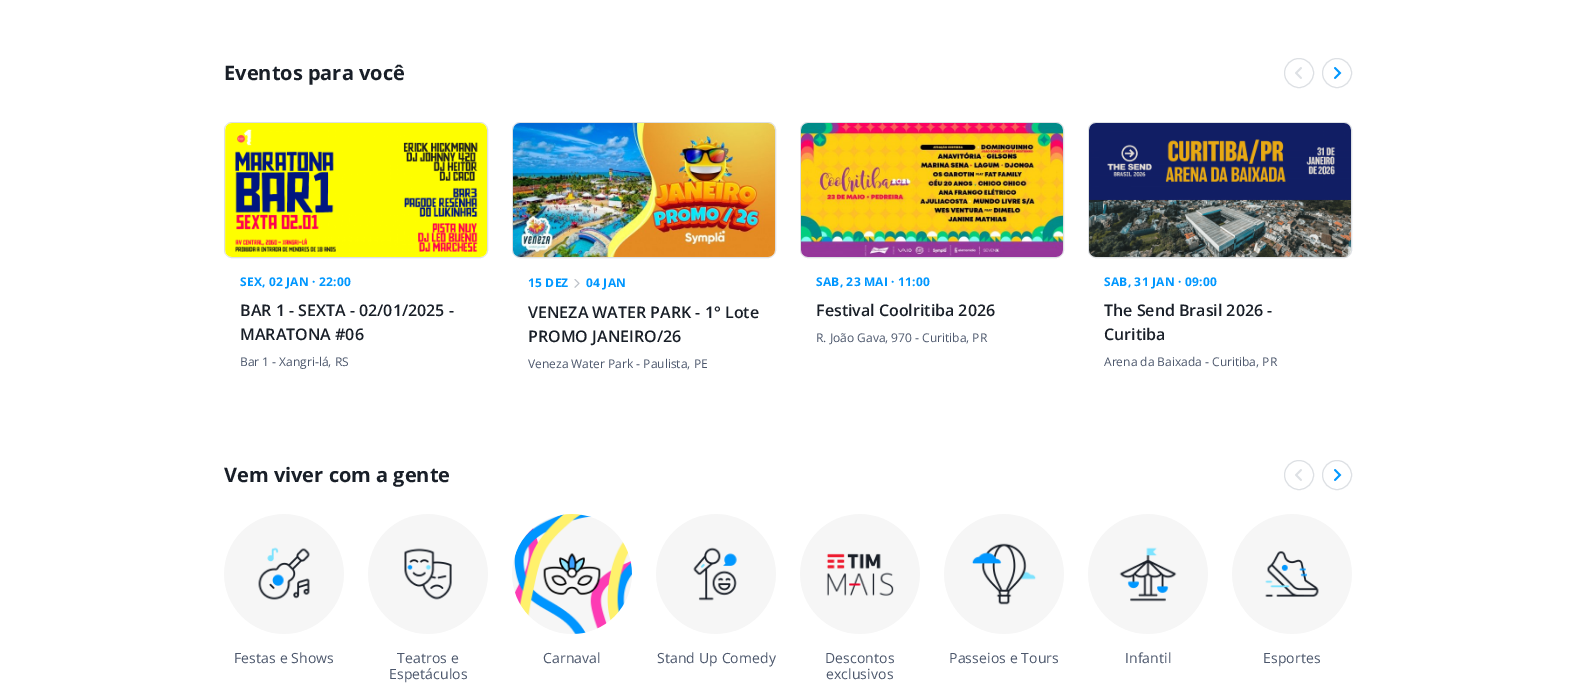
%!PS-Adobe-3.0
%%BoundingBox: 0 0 1576 698
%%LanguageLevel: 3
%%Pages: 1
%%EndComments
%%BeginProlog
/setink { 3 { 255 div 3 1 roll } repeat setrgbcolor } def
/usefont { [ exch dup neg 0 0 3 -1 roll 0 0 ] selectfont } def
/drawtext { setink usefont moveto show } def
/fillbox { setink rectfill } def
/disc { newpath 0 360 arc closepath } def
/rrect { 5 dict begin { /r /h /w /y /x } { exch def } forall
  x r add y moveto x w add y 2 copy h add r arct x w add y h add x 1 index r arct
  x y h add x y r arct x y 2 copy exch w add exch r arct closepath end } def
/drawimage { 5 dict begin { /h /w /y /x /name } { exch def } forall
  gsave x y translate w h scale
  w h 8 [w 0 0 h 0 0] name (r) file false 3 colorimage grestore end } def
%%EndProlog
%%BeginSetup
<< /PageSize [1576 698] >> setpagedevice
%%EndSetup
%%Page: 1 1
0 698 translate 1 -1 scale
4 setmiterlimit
0 0 1576 698 255 255 255 fillbox
(Eventos para você) 224 80 /OpenSans-Bold 20 25 31 40 drawtext
221 224 228 setink
1299 73 14.5 disc stroke
(assets/img1.rgb) 1295 67 7 12 drawimage
1337 73 14.5 disc stroke
(assets/img2.rgb) 1334 67 8 12 drawimage
224.5 122.5 263 135 7.5 rrect stroke
(assets/img3.rgb) 225 123 262 134 drawimage
(assets/img4.rgb) 225 123 262 134 drawimage
/OpenSans-Bold 12 usefont
0 151 255 setink
240 286 moveto 0.2 0 (SEX, 02 JAN · 22:00) ashow
(BAR 1 - SEXTA - 02/01/2025 -) 240 316 /OpenSans-SemiBold 16 25 31 40 drawtext
(MARATONA #06) 240 340 /OpenSans-SemiBold 16 25 31 40 drawtext
(Bar 1 - Xangri-lá, RS) 240 366 /OpenSans-Regular 12 76 87 108 drawtext
221 224 228 setink
512.5 122.5 263 135 7.5 rrect stroke
(assets/img3.rgb) 513 123 262 134 drawimage
(assets/img5.rgb) 513 123 262 134 drawimage
/OpenSans-Bold 12 usefont
0 151 255 setink
528 287 moveto 0.2 0 (15 DEZ) ashow
(assets/img6.rgb) 574 279 6 9 drawimage
586 287 moveto 0.2 0 (04 JAN) ashow
(VENEZA WATER PARK - 1° Lote) 528 318 /OpenSans-SemiBold 16 25 31 40 drawtext
(PROMO JANEIRO/26) 528 342 /OpenSans-SemiBold 16 25 31 40 drawtext
(Veneza Water Park - Paulista, PE) 528 368 /OpenSans-Regular 12 76 87 108 drawtext
221 224 228 setink
800.5 122.5 263 135 7.5 rrect stroke
(assets/img3.rgb) 801 123 262 134 drawimage
(assets/img7.rgb) 801 123 262 134 drawimage
/OpenSans-Bold 12 usefont
0 151 255 setink
816 286 moveto 0.2 0 (SAB, 23 MAI · 11:00) ashow
(Festival Coolritiba 2026) 816 316 /OpenSans-SemiBold 16 25 31 40 drawtext
(R. João Gava, 970 - Curitiba, PR) 816 342 /OpenSans-Regular 12 76 87 108 drawtext
221 224 228 setink
1088.5 122.5 263 135 7.5 rrect stroke
(assets/img3.rgb) 1089 123 262 134 drawimage
(assets/img8.rgb) 1089 123 262 134 drawimage
/OpenSans-Bold 12 usefont
0 151 255 setink
1104 286 moveto 0.2 0 (SAB, 31 JAN · 09:00) ashow
(The Send Brasil 2026 -) 1104 316 /OpenSans-SemiBold 16 25 31 40 drawtext
(Curitiba) 1104 340 /OpenSans-SemiBold 16 25 31 40 drawtext
(Arena da Baixada - Curitiba, PR) 1104 366 /OpenSans-Regular 12 76 87 108 drawtext
(Vem viver com a gente) 224 482 /OpenSans-Bold 20 25 31 40 drawtext
221 224 228 setink
1299 475 14.5 disc stroke
(assets/img1.rgb) 1295 469 7 12 drawimage
1337 475 14.5 disc stroke
(assets/img2.rgb) 1334 469 8 12 drawimage
(assets/img9.rgb) 224 514 120 120 drawimage
/OpenSans-Regular 14 usefont
76 87 108 setink
234 663 moveto 0.1 0 (Festas e Shows) ashow
(assets/img10.rgb) 368 514 120 120 drawimage
397 663 moveto 0.1 0 (Teatros e) ashow
389 679 moveto 0.1 0 (Espetáculos) ashow
(assets/img11.rgb) 512 514 120 120 drawimage
543 663 moveto 0.1 0 (Carnaval) ashow
(assets/img12.rgb) 656 514 120 120 drawimage
657 663 moveto 0.1 0 (Stand Up Comedy) ashow
(assets/img13.rgb) 800 514 120 120 drawimage
825 663 moveto 0.1 0 (Descontos) ashow
826 679 moveto 0.1 0 (exclusivos) ashow
(assets/img14.rgb) 944 514 120 120 drawimage
949 663 moveto 0.1 0 (Passeios e Tours) ashow
(assets/img15.rgb) 1088 514 120 120 drawimage
1125 663 moveto 0.1 0 (Infantil) ashow
(assets/img16.rgb) 1232 514 120 120 drawimage
1263 663 moveto 0.1 0 (Esportes) ashow
showpage
%%EOF
